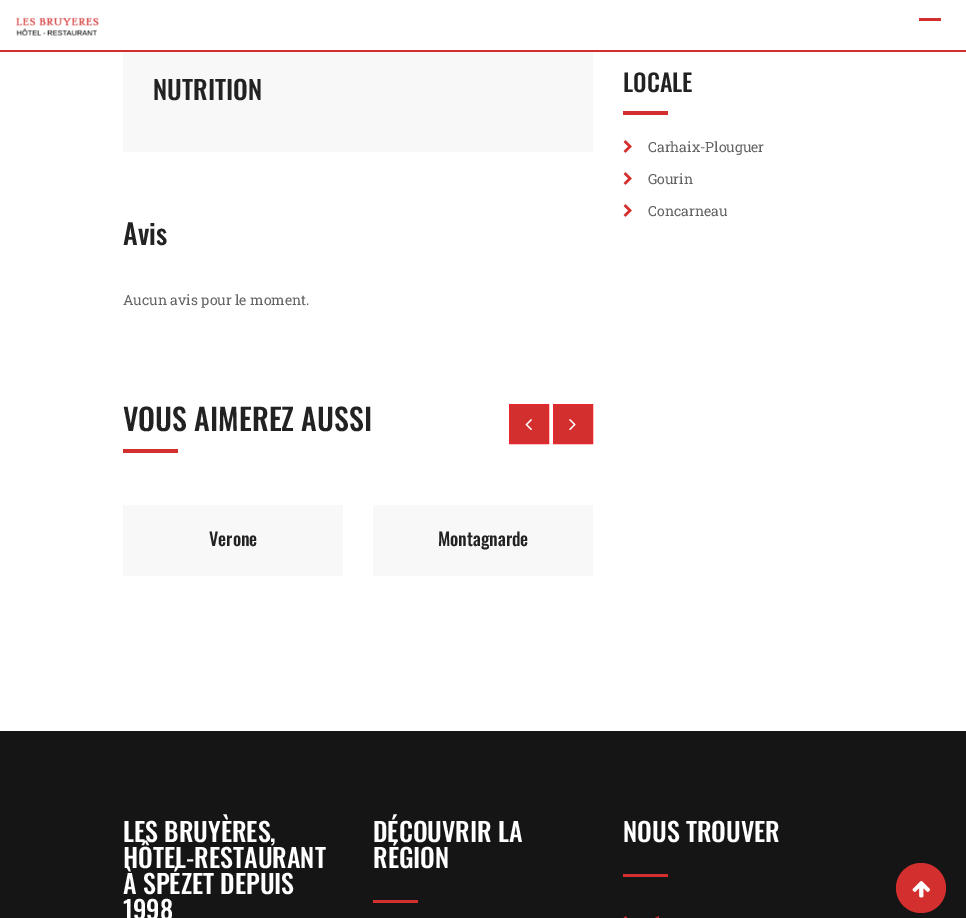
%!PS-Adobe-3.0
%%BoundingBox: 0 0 966 918
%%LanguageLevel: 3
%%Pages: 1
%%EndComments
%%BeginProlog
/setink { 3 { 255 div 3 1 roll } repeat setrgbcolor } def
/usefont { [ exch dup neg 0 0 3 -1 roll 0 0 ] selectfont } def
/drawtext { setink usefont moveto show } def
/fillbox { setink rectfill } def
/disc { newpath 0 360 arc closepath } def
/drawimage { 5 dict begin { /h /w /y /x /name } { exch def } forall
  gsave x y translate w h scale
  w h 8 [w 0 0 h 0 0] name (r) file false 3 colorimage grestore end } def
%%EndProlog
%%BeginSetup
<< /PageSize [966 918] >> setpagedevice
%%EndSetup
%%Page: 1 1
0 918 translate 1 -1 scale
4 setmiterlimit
0 0 966 918 255 255 255 fillbox
0 50 966 2 211 47 47 fillbox
(assets/img1.rgb) 16 17 83 19 drawimage
919 18 22 3 211 47 47 fillbox
123 52 470 100 248 248 248 fillbox
(NUTRITION) 153 100 /Oswald-Medium 26 34 34 34 drawtext
(Avis) 123 245 /Oswald-Medium 28 34 34 34 drawtext
(Aucun avis pour le moment.) 123 305 /RobotoSlab-Regular 14 100 100 100 drawtext
(VOUS AIMEREZ AUSSI) 123 431 /Oswald-Medium 30 34 34 34 drawtext
123 449 55 4 211 47 47 fillbox
509.5 404.5 moveto 548.5 404.5 lineto 548.5 443.5 lineto 509.5 443.5 lineto closepath gsave fill grestore
231 39 45 setink
stroke
(assets/img2.rgb) 525 419 7 12 drawimage
211 47 47 setink
553.5 404.5 moveto 592.5 404.5 lineto 592.5 443.5 lineto 553.5 443.5 lineto closepath gsave fill grestore
231 39 45 setink
stroke
(assets/img3.rgb) 569 419 7 12 drawimage
123 505 220 71 248 248 248 fillbox
(Verone) 209 546 /Oswald-Medium 18 34 34 34 drawtext
373 505 220 71 248 248 248 fillbox
(Montagnarde) 438 546 /Oswald-Medium 18 34 34 34 drawtext
(LOCALE) 623 92 /Oswald-Medium 24 34 34 34 drawtext
623 111 45 4 211 47 47 fillbox
(assets/img4.rgb) 623 140 9 13 drawimage
(Carhaix-Plouguer) 648 152 /RobotoSlab-Regular 14 100 100 100 drawtext
(assets/img4.rgb) 623 172 9 13 drawimage
(Gourin) 648 184 /RobotoSlab-Regular 14 100 100 100 drawtext
(assets/img4.rgb) 623 204 9 13 drawimage
(Concarneau) 648 216 /RobotoSlab-Regular 14 100 100 100 drawtext
0 731 966 187 21 21 21 fillbox
(LES BRUYÈRES,) 123 842 /Oswald-Medium 26 255 255 255 drawtext
(HÔTEL-RESTAURANT) 123 868 /Oswald-Medium 26 255 255 255 drawtext
(À SPÉZET DEPUIS) 123 894 /Oswald-Medium 26 255 255 255 drawtext
(1998) 123 920 /Oswald-Medium 26 255 255 255 drawtext
(DÉCOUVRIR LA) 373 842 /Oswald-Medium 26 255 255 255 drawtext
(RÉGION) 373 868 /Oswald-Medium 26 255 255 255 drawtext
373 900 45 3 211 47 47 fillbox
(NOUS TROUVER) 623 842 /Oswald-Medium 26 255 255 255 drawtext
623 874 45 3 211 47 47 fillbox
(assets/img5.rgb) 623 916 5 2 drawimage
(assets/img6.rgb) 655 916 4 2 drawimage
921 888 25 disc fill
(assets/img7.rgb) 912 881 18 17 drawimage
showpage
%%EOF
